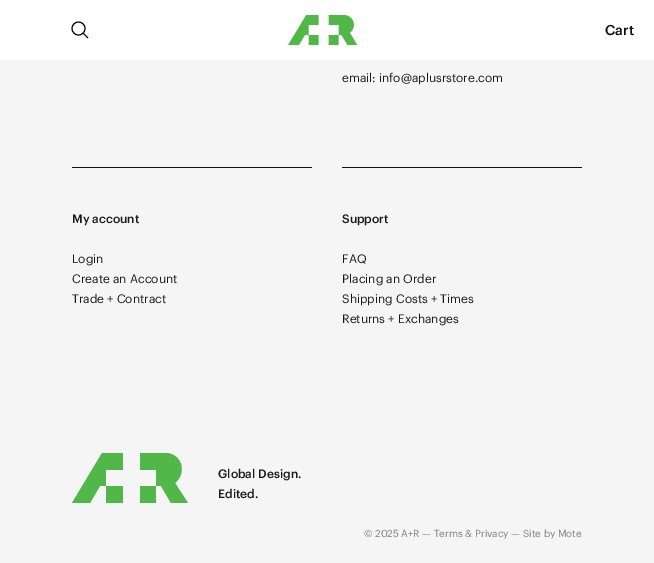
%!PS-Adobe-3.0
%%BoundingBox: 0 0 654 563
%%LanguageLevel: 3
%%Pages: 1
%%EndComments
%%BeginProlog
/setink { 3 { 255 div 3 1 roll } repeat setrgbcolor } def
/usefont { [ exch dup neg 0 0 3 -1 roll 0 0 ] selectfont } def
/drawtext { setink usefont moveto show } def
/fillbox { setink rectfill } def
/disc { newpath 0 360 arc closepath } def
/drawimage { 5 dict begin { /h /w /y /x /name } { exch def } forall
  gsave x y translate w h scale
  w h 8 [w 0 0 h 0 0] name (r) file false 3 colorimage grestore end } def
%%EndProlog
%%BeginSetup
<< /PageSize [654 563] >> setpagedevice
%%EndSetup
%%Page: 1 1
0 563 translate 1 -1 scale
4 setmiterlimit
0 0 654 563 245 245 245 fillbox
0 0 654 60 255 255 255 fillbox
0 0 0 setink
83 33 moveto 88 38 lineto stroke
78.5 28.5 6.5 disc stroke
(assets/img1.rgb) 288 15 69 30 drawimage
(Cart) 605 35 /Graphik-Medium 14 16 16 16 drawtext
(email: info@aplusrstore.com) 342 82 /Graphik-Regular 12 26 26 26 drawtext
72 167 240 1 16 16 16 fillbox
(My account) 72 223 /Graphik-Medium 12 26 26 26 drawtext
(Login) 72 263 /Graphik-Regular 12 26 26 26 drawtext
(Create an Account) 72 283 /Graphik-Regular 12 26 26 26 drawtext
(Trade + Contract) 72 303 /Graphik-Regular 12 26 26 26 drawtext
342 167 240 1 16 16 16 fillbox
(Support) 342 223 /Graphik-Medium 12 26 26 26 drawtext
(FAQ) 342 263 /Graphik-Regular 12 26 26 26 drawtext
(Placing an Order) 342 283 /Graphik-Regular 12 26 26 26 drawtext
(Shipping Costs + Times) 342 303 /Graphik-Regular 12 26 26 26 drawtext
(Returns + Exchanges) 342 323 /Graphik-Regular 12 26 26 26 drawtext
80 183 72 setink
106 503 moveto 106 486 lineto 123 486 lineto 123 503 lineto closepath 140 503 moveto 156 503 lineto 156 486 lineto 140 486 lineto closepath 102 453 moveto 72 503 lineto 90 503 lineto 100 486 lineto 106 486 lineto 106 470 lineto 123 470 lineto 123 453 lineto closepath 175 483 moveto 181 478 183 471 181 464 curveto 179 458 173 453 166 453 curveto 140 453 lineto 140 470 lineto 156 470 lineto 156 486 lineto 161 486 lineto 171 503 lineto 188 503 lineto closepath fill
(Global Design.) 218 478 /Graphik-Medium 12 26 26 26 drawtext
(Edited.) 218 498 /Graphik-Medium 12 26 26 26 drawtext
(© 2025 A+R — Terms & Privacy — Site by Mote) 364 537 /Graphik-Regular 10 128 128 128 drawtext
showpage
%%EOF
